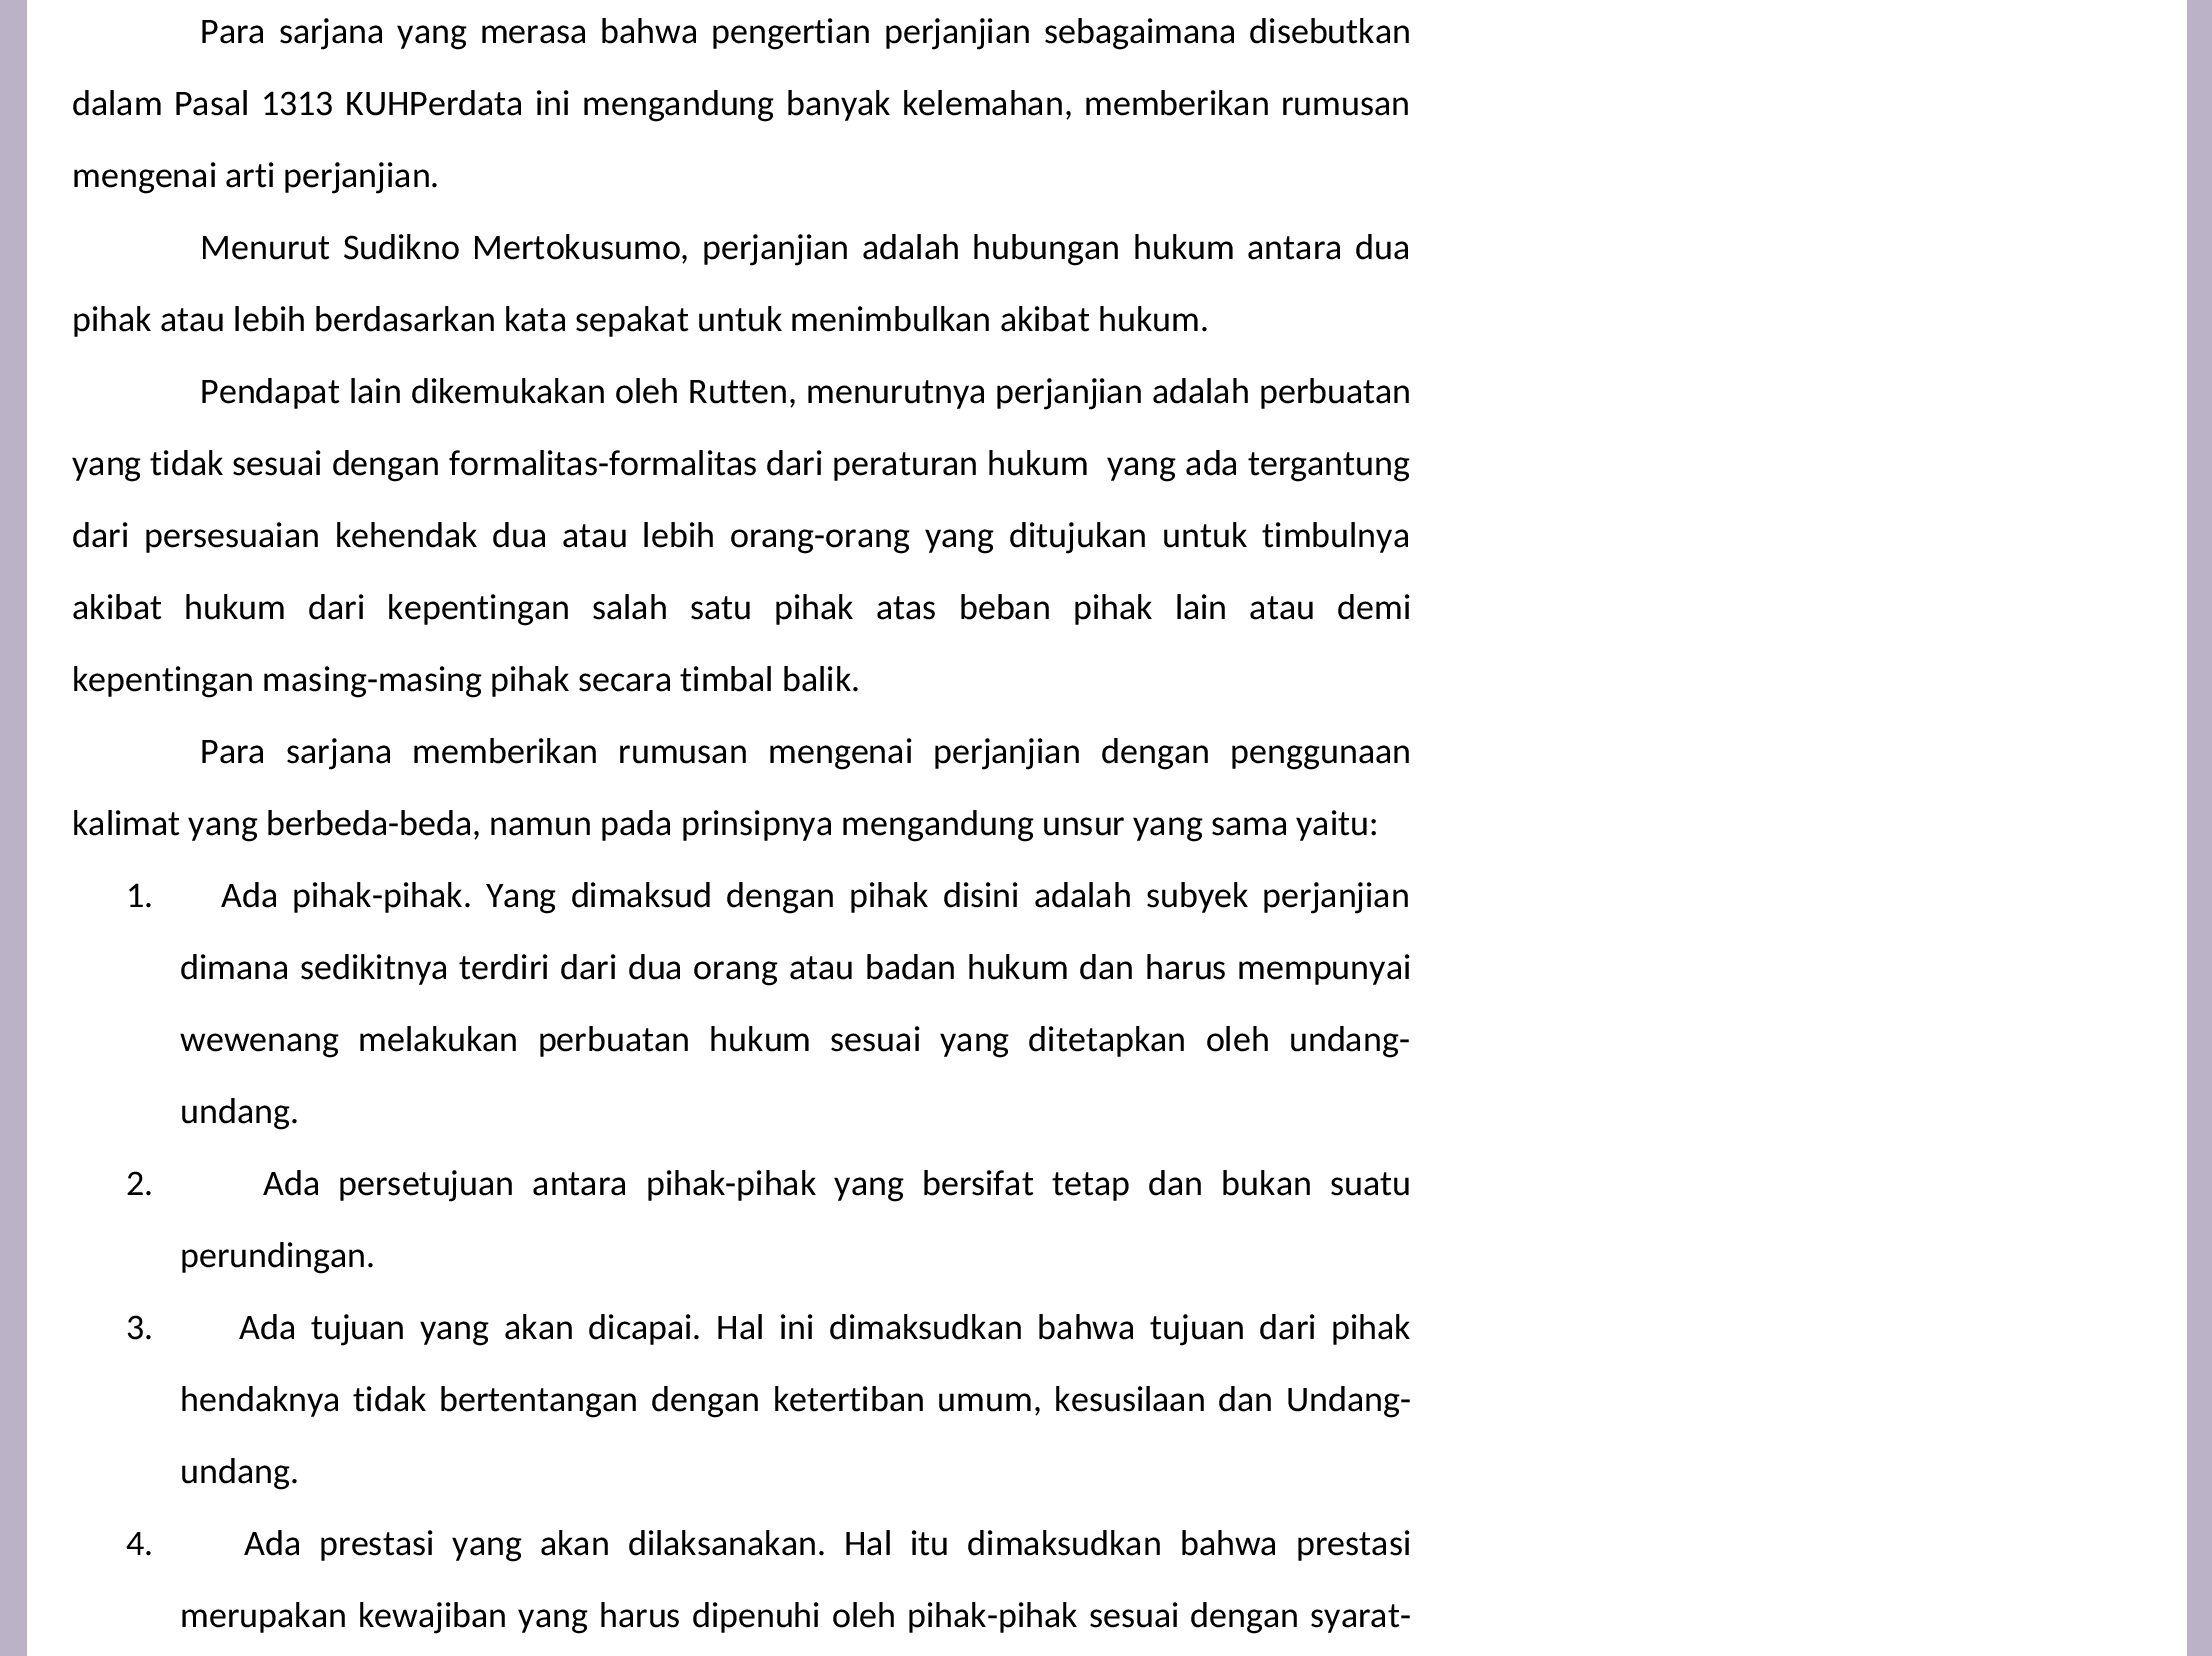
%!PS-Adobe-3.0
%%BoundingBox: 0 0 2212 1656
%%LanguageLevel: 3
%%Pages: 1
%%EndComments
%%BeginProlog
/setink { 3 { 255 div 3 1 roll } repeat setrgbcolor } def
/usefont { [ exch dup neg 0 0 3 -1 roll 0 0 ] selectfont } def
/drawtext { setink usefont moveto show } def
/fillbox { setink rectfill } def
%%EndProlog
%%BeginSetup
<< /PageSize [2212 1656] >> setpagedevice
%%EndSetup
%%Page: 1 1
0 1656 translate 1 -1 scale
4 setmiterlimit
0 0 2212 1656 188 178 200 fillbox
27 0 2160 1656 255 255 255 fillbox
/Carlito-Regular 36 usefont
0 0 0 setink
200 43 moveto 4.75 0 32 (Para sarjana yang merasa bahwa pengertian perjanjian sebagaimana disebutkan) widthshow
72 115 moveto 3.25 0 32 (dalam Pasal 1313 KUHPerdata ini mengandung banyak kelemahan, memberikan rumusan) widthshow
(mengenai arti perjanjian.) 72 187 /Carlito-Regular 36 0 0 0 drawtext
200 259 moveto 4.5 0 32 (Menurut Sudikno Mertokusumo, perjanjian adalah hubungan hukum antara dua) widthshow
(pihak atau lebih berdasarkan kata sepakat untuk menimbulkan akibat hukum.) 72 331 /Carlito-Regular 36 0 0 0 drawtext
200 403 moveto 1 0 32 (Pendapat lain dikemukakan oleh Rutten, menurutnya perjanjian adalah perbuatan) widthshow
72 475 moveto 0.8 0 32 (yang tidak sesuai dengan formalitas-formalitas dari peraturan hukum  yang ada tergantung) widthshow
72 547 moveto 6.75 0 32 (dari persesuaian kehendak dua atau lebih orang-orang yang ditujukan untuk timbulnya) widthshow
72 619 moveto 14 0 32 (akibat hukum dari kepentingan salah satu pihak atas beban pihak lain atau demi) widthshow
(kepentingan masing-masing pihak secara timbal balik.) 72 691 /Carlito-Regular 36 0 0 0 drawtext
200 763 moveto 12.25 0 32 (Para sarjana memberikan rumusan mengenai perjanjian dengan penggunaan) widthshow
(kalimat yang berbeda-beda, namun pada prinsipnya mengandung unsur yang sama yaitu:) 72 835 /Carlito-Regular 36 0 0 0 drawtext
(1.) 126 907 /Carlito-Regular 36 0 0 0 drawtext
221 907 moveto 6 0 32 (Ada pihak-pihak. Yang dimaksud dengan pihak disini adalah subyek perjanjian) widthshow
180 979 moveto 2.5 0 32 (dimana sedikitnya terdiri dari dua orang atau badan hukum dan harus mempunyai) widthshow
180 1051 moveto 11 0 32 (wewenang melakukan perbuatan hukum sesuai yang ditetapkan oleh undang-) widthshow
(undang.) 180 1123 /Carlito-Regular 36 0 0 0 drawtext
(2.) 126 1195 /Carlito-Regular 36 0 0 0 drawtext
263 1195 moveto 10 0 32 (Ada persetujuan antara pihak-pihak yang bersifat tetap dan bukan suatu) widthshow
(perundingan.) 180 1267 /Carlito-Regular 36 0 0 0 drawtext
(3.) 126 1339 /Carlito-Regular 36 0 0 0 drawtext
239 1339 moveto 6.5 0 32 (Ada tujuan yang akan dicapai. Hal ini dimaksudkan bahwa tujuan dari pihak) widthshow
180 1411 moveto 4.5 0 32 (hendaknya tidak bertentangan dengan ketertiban umum, kesusilaan dan Undang-) widthshow
(undang.) 180 1483 /Carlito-Regular 36 0 0 0 drawtext
(4.) 126 1555 /Carlito-Regular 36 0 0 0 drawtext
244 1555 moveto 10 0 32 (Ada prestasi yang akan dilaksanakan. Hal itu dimaksudkan bahwa prestasi) widthshow
180 1627 moveto 3 0 32 (merupakan kewajiban yang harus dipenuhi oleh pihak-pihak sesuai dengan syarat-) widthshow
showpage
%%EOF
